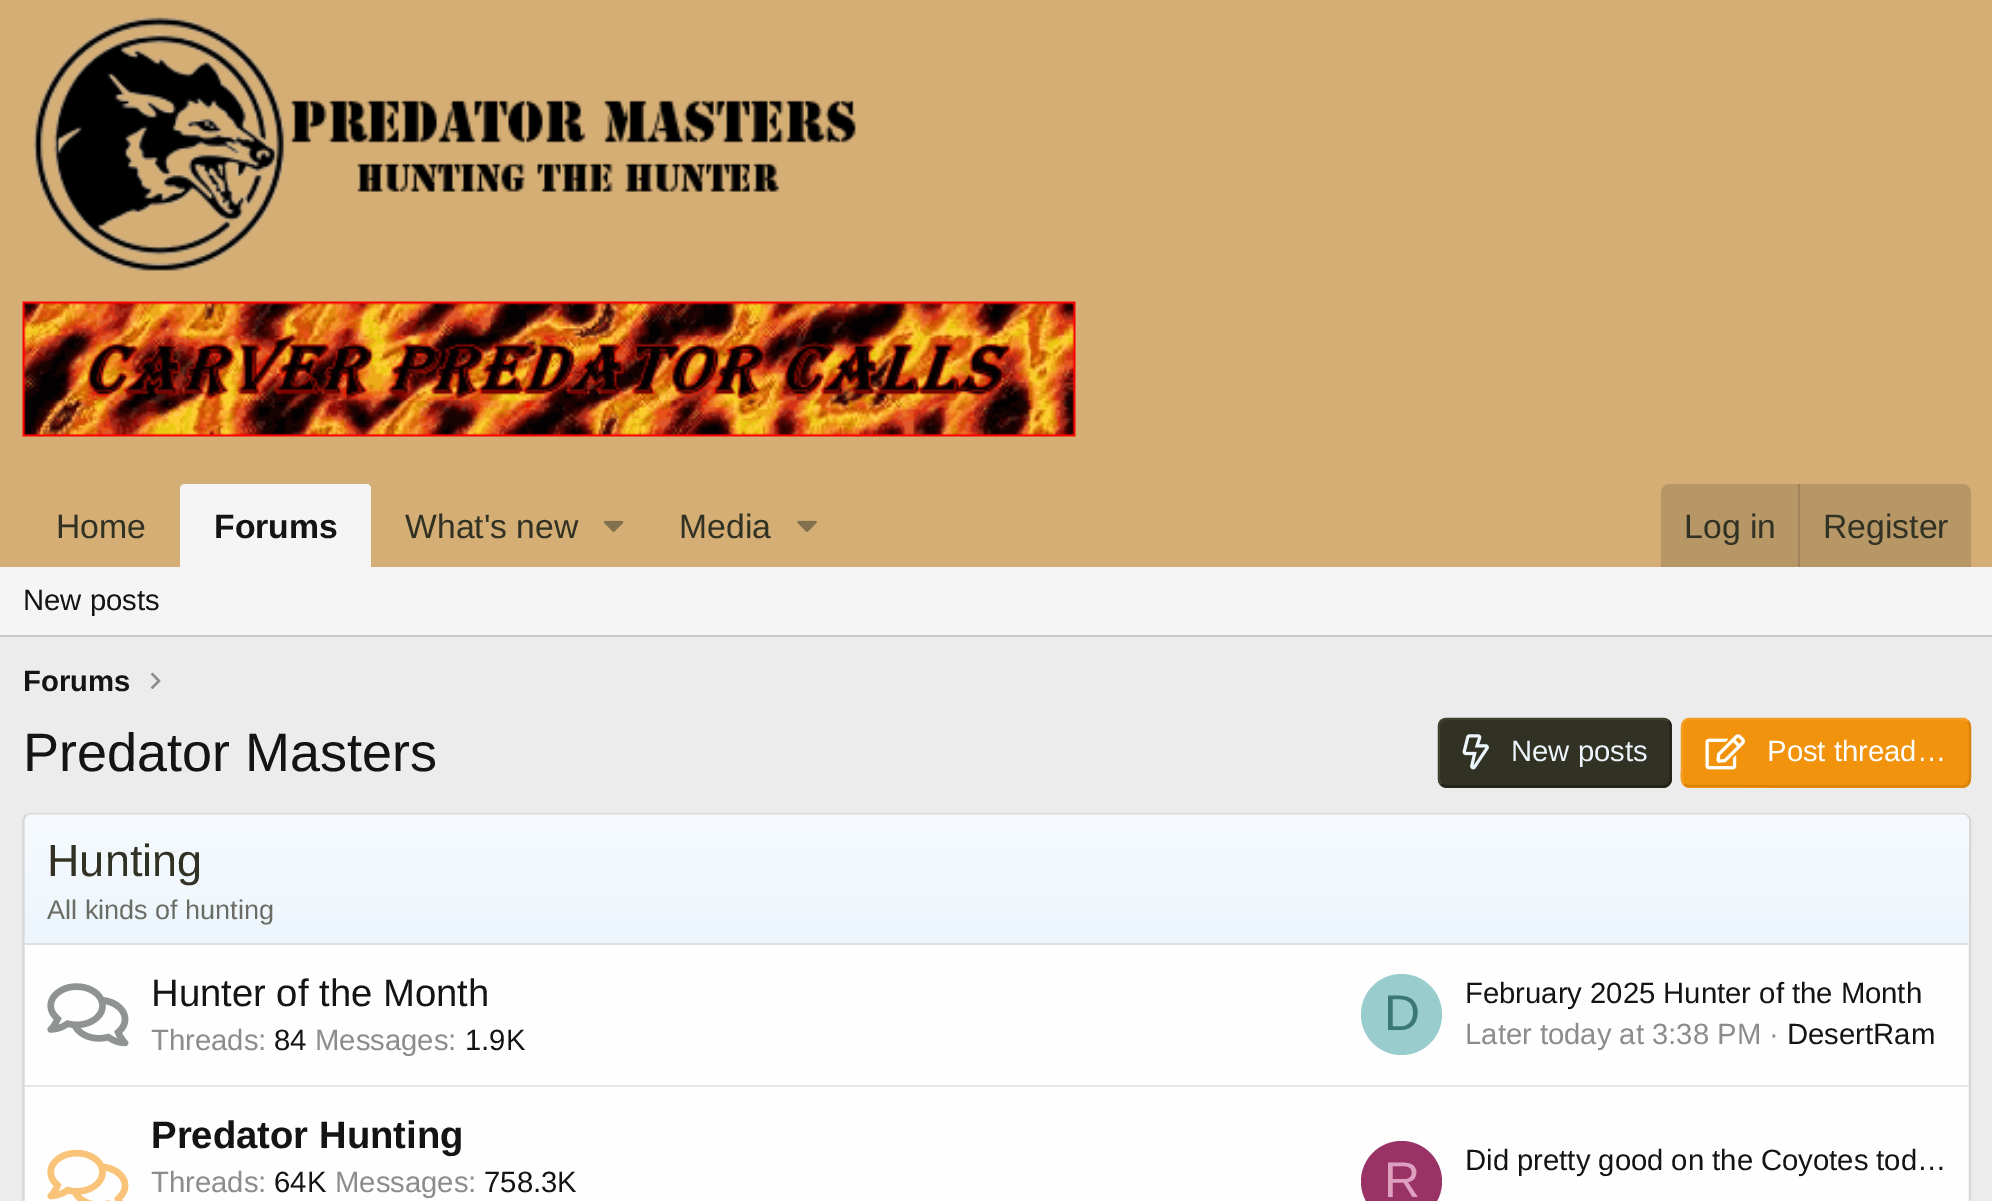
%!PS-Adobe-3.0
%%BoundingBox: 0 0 1992 1201
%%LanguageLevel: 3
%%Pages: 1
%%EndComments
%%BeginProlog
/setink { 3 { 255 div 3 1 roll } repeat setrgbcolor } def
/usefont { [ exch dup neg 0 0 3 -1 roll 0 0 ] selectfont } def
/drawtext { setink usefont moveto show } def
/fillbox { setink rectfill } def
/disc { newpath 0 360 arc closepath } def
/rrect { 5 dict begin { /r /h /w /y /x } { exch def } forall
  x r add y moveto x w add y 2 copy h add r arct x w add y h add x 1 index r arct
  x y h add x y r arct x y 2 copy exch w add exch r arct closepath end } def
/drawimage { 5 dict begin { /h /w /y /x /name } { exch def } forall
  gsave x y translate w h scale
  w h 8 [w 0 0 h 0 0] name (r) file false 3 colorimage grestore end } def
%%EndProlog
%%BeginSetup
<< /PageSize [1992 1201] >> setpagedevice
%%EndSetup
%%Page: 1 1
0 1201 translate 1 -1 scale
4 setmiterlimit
0 0 1992 1201 236 236 236 fillbox
0 0 1992 567 213 174 117 fillbox
(assets/img1.rgb) 33 17 823 254 drawimage
(assets/img2.rgb) 22 301 1054 136 drawimage
(Home) 56 538 /LiberationSans-Regular 33.75 50 50 36 drawtext
245 245 245 setink
185 484 moveto 366 484 lineto 369 484 371 486 371 489 curveto 371 567 lineto 180 567 lineto 180 489 lineto 180 486 182 484 185 484 curveto closepath fill
(Forums) 214 538 /LiberationSans-Bold 33.75 20 20 20 drawtext
(What's new) 405 538 /LiberationSans-Regular 33.75 50 50 36 drawtext
(assets/img3.rgb) 603 520 21 12 drawimage
(Media) 679 538 /LiberationSans-Regular 33.75 50 50 36 drawtext
(assets/img4.rgb) 797 520 20 12 drawimage
184 151 102 setink
1670 484 moveto 1962 484 lineto 1967 484 1971 488 1971 493 curveto 1971 567 lineto 1661 567 lineto 1661 493 lineto 1661 488 1665 484 1670 484 curveto closepath fill
(Log in) 1684 538 /LiberationSans-Regular 33.75 50 50 36 drawtext
1798 484 2 83 159 131 90 fillbox
(Register) 1823 538 /LiberationSans-Regular 33.75 50 50 36 drawtext
0 567 1992 68 245 245 245 fillbox
0 635 1992 2 203 203 203 fillbox
(New posts) 23 610 /LiberationSans-Regular 29.25 20 20 20 drawtext
(Forums) 23 691 /LiberationSans-Bold 29.25 20 20 20 drawtext
(assets/img5.rgb) 150 672 11 17 drawimage
(Predator Masters) 23 771 /LiberationSans-Regular 54 20 20 20 drawtext
50 50 36 setink
1438 718 234 70 9 rrect fill
35 35 25 setink
2.2 setlinewidth
1668.5 721 moveto 1670 722.5 1670.5 724.5 1670.5 727 curveto 1670.5 778.5 lineto 1670.5 780.5 1670 782.5 1668.5 784 curveto 1667 785.5 1665 786.5 1663 786.5 curveto 1447 786.5 lineto 1444.5 786.5 1442.5 785.5 1441 784 curveto stroke
65 65 47 setink
1441 784 moveto 1439.5 782.5 1439 780.5 1439 778.5 curveto 1439 727 lineto 1439 724.5 1439.5 722.5 1441 721 curveto 1442.5 719.5 1444.5 719 1447 719 curveto 1663 719 lineto 1665 719 1667 719.5 1668.5 721 curveto stroke
(assets/img6.rgb) 1462 734 27 36 drawimage
(New posts) 1511 761 /LiberationSans-Regular 29.25 237 246 253 drawtext
242 147 13 setink
1681 718 290 70 9 rrect fill
218 132 12 setink
1967.5 721 moveto 1971 725 1970 731 1970 735.5 curveto 1970 770 lineto 1970 776 1971.5 786.5 1962 786.5 curveto 1687.5 786 lineto 1684 784 lineto stroke
243 158 37 setink
1684 784 moveto 1680.5 780.5 1682 774 1682 770 curveto 1682 735.5 lineto 1682 729 1680.5 719 1690 719 curveto 1964.5 719 lineto 1967.5 721 lineto stroke
(assets/img7.rgb) 1705 734 40 36 drawimage
(Post thread…) 1767 761 /LiberationSans-Regular 29.25 255 255 255 drawtext
254 254 254 setink
23 812 1948 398 9 rrect fill
223 223 223 setink
26 815.5 moveto 27.5 814 29.5 813.5 31.5 813.5 curveto 1962 813.5 lineto 1964 813.5 1966 814 1967.5 815.5 curveto stroke
216 216 216 setink
1967.5 815.5 moveto 1969 817 1970 819 1970 821 curveto 1970 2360 lineto 1970 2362.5 1969 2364.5 1967.5 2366 curveto stroke
26 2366 moveto 24.5 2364.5 23.5 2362.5 23.5 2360 curveto 23.5 821 lineto 23.5 819 24.5 817 26 815.5 curveto stroke
gsave 32 815 moveto 1962 815 lineto 1966 815 1969 818 1969 822 curveto 1969 943 lineto 25 943 lineto 25 822 lineto 25 818 28 815 32 815 curveto closepath clip newpath
<< /ShadingType 2 /ColorSpace /DeviceRGB /Coords [997 943 997 815] /Extend [true true] /Function << /FunctionType 2 /Domain [0 1] /C0 [0.929 0.965 0.992] /C1 [0.965 0.98 0.996] /N 1 >> >> shfill grestore
25 943 1944 2 223 223 223 fillbox
(Hunting) 47 876 /LiberationSans-Regular 45 50 50 36 drawtext
(All kinds of hunting) 47 919 /LiberationSans-Regular 27 107 109 101 drawtext
(assets/img8.rgb) 47 983 82 64 drawimage
(Hunter of the Month) 151 1006 /LiberationSans-Regular 38.25 20 20 20 drawtext
(Threads:) 151 1050 /LiberationSans-Regular 29.25 140 140 140 drawtext
(84) 274 1050 /LiberationSans-Regular 29.25 20 20 20 drawtext
(Messages:) 315 1050 /LiberationSans-Regular 29.25 140 140 140 drawtext
(1.9K) 465 1050 /LiberationSans-Regular 29.25 20 20 20 drawtext
153 204 204 setink
1401.5 1014.5 40.5 disc fill
(D) 1384 1030 /LiberationSans-Regular 50 60 119 119 drawtext
(February 2025 Hunter of the Month) 1465 1003 /LiberationSans-Regular 29.25 20 20 20 drawtext
(Later today at 3:38 PM ·) 1465 1044 /LiberationSans-Regular 29.25 140 140 140 drawtext
(DesertRam) 1787 1044 /LiberationSans-Regular 29.25 20 20 20 drawtext
25 1085 1944 2 231 231 231 fillbox
(assets/img9.rgb) 47 1149 82 52 drawimage
(Predator Hunting) 151 1148 /LiberationSans-Bold 38.25 20 20 20 drawtext
(Threads:) 151 1192 /LiberationSans-Regular 29.25 140 140 140 drawtext
(64K) 274 1192 /LiberationSans-Regular 29.25 20 20 20 drawtext
(Messages:) 335 1192 /LiberationSans-Regular 29.25 140 140 140 drawtext
(758.3K) 484 1192 /LiberationSans-Regular 29.25 20 20 20 drawtext
153 51 102 setink
1401.5 1181.5 40.5 disc fill
(R) 1384 1197 /LiberationSans-Regular 50 223 159 191 drawtext
(Did pretty good on the Coyotes tod…) 1465 1170 /LiberationSans-Regular 29.25 20 20 20 drawtext
showpage
%%EOF
